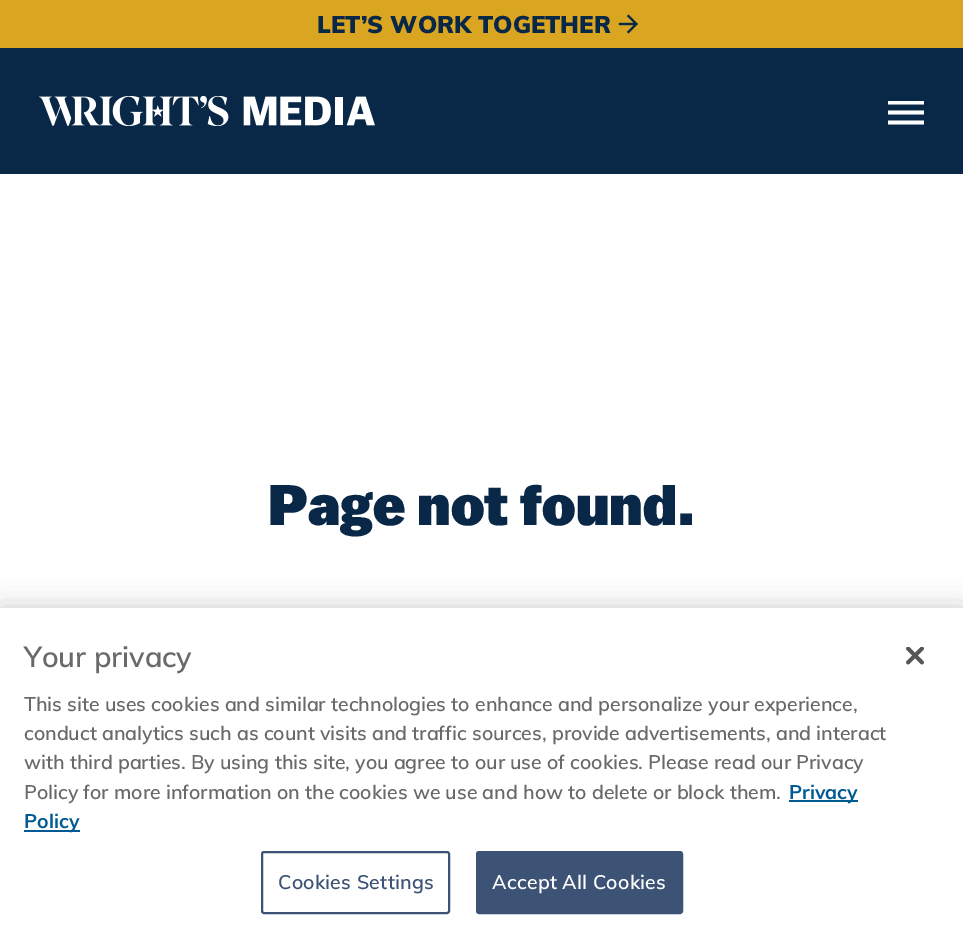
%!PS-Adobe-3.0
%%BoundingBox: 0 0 963 937
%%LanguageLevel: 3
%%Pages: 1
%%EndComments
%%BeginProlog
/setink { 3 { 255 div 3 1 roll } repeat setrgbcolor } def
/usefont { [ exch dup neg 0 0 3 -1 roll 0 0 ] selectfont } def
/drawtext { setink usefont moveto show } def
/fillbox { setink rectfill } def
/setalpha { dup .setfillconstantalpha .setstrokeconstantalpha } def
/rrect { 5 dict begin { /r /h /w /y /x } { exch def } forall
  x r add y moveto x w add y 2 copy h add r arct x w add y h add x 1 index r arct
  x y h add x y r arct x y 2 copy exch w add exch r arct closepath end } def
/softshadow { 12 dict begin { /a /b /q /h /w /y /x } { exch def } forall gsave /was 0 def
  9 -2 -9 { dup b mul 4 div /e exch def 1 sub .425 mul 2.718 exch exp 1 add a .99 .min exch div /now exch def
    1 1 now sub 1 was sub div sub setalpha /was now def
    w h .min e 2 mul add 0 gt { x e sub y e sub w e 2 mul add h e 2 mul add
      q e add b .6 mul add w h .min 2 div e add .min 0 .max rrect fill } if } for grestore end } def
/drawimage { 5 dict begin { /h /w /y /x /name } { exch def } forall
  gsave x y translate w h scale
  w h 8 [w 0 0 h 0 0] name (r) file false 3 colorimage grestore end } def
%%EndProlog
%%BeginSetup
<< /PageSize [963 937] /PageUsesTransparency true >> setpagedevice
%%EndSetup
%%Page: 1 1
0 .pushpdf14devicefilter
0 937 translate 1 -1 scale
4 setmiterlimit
0 0 963 937 255 255 255 fillbox
0 0 963 48 218 165 32 fillbox
(LET’S WORK TOGETHER) 317 33 /Muli-Black 24 9 39 70 drawtext
(assets/img1.rgb) 618 14 20 20 drawimage
0 48 963 126 9 39 70 fillbox
(assets/img2.rgb) 39 96 336 30 drawimage
gsave
888 101 36 24 rectclip
255 255 255 setink
888 124.5 moveto 924 124.5 lineto 924 120.5 lineto 888 120.5 lineto closepath 888 114.5 moveto 924 114.5 lineto 924 110.5 lineto 888 110.5 lineto closepath 888 104.5 moveto 924 104.5 lineto 924 100.5 lineto 888 100.5 lineto closepath fill
grestore
(Page not found.) 268 525 /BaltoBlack-Black 57 9 39 70 drawtext
0 0 0 setink
0 608 963 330 0 13.5 0.2 softshadow
0 608 963 329 255 255 255 fillbox
(Your privacy) 24 667 /Muli-SemiBold 28.75 105 105 105 drawtext
(This site uses cookies and similar technologies to enhance and personalize your experience,) 24 711 /Muli-SemiBold 19.5 105 105 105 drawtext
(conduct analytics such as count visits and traffic sources, provide advertisements, and interact) 24 740 /Muli-SemiBold 19.5 105 105 105 drawtext
(with third parties. By using this site, you agree to our use of cookies. Please read our Privacy) 24 769 /Muli-SemiBold 19.5 105 105 105 drawtext
(Policy for more information on the cookies we use and how to delete or block them.) 24 799 /Muli-SemiBold 19.5 105 105 105 drawtext
789 800 69 2 0 91 148 fillbox
(Privacy) 789 799 /Muli-Bold 19.5 0 91 148 drawtext
24 830 56 2 0 91 148 fillbox
(Policy) 24 828 /Muli-Bold 19.5 0 91 148 drawtext
61 83 117 setink
2 setlinewidth
262 852 187 61 2 rrect stroke
/Muli-SemiBold 19.5 usefont
278 889 moveto 0.25 0 (Cookies Settings) ashow
477 852 205 61 2 rrect gsave fill grestore
stroke
255 255 255 setink
492 889 moveto 0.25 0 (Accept All Cookies) ashow
(assets/img3.rgb) 906 647 18 18 drawimage
.poppdf14devicefilter showpage
%%EOF
